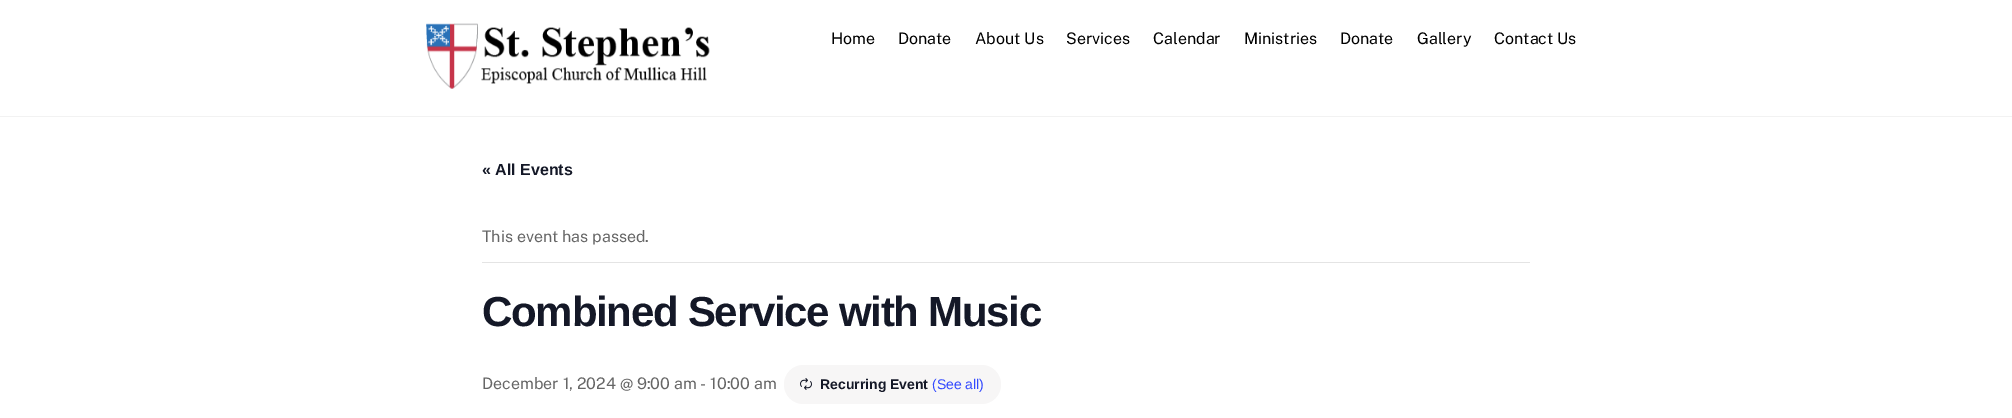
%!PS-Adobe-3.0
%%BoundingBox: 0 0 2012 418
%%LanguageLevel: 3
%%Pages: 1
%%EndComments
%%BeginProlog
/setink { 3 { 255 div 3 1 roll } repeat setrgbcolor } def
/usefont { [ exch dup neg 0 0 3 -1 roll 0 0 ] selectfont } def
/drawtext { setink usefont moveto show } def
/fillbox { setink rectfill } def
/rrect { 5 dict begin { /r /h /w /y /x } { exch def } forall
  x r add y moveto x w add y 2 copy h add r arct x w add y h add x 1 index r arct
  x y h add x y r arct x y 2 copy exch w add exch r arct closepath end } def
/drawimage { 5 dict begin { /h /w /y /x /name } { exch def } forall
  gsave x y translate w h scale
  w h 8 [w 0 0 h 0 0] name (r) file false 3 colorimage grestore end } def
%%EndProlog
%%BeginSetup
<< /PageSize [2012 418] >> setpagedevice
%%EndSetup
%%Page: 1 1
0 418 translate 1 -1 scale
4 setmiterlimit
0 0 2012 418 255 255 255 fillbox
0 116 2012 1 242 242 242 fillbox
(assets/img1.rgb) 426 23 284 66 drawimage
(Home) 831 44 /PublicSans-Regular 16 0 0 0 drawtext
(Donate) 898 44 /PublicSans-Regular 16 0 0 0 drawtext
(About Us) 975 44 /PublicSans-Regular 16 0 0 0 drawtext
(Services) 1066 44 /PublicSans-Regular 16 0 0 0 drawtext
(Calendar) 1153 44 /PublicSans-Regular 16 0 0 0 drawtext
(Ministries) 1244 44 /PublicSans-Regular 16 0 0 0 drawtext
(Donate) 1340 44 /PublicSans-Regular 16 0 0 0 drawtext
(Gallery) 1417 44 /PublicSans-Regular 16 0 0 0 drawtext
(Contact Us) 1494 44 /PublicSans-Regular 16 0 0 0 drawtext
(« All Events) 482 175 /LiberationSans-Bold 16 20 24 39 drawtext
482 262 1048 1 228 228 228 fillbox
(This event has passed.) 482 242 /PublicSans-Regular 16 102 102 102 drawtext
/LiberationSans-Bold 42 usefont
20 24 39 setink
482 326 moveto -1.25 0 (Combined Service with Music) ashow
(December 1, 2024 @ 9:00 am - 10:00 am) 482 389 /PublicSans-Regular 16 102 102 102 drawtext
247 246 246 setink
784 365 217 39 19.5 rrect fill
(assets/img2.rgb) 800 378 12 12 drawimage
(Recurring Event) 820 389 /LiberationSans-Bold 14 20 24 39 drawtext
(\(See all\)) 932 389 /LiberationSans-Regular 14 51 74 255 drawtext
showpage
%%EOF
